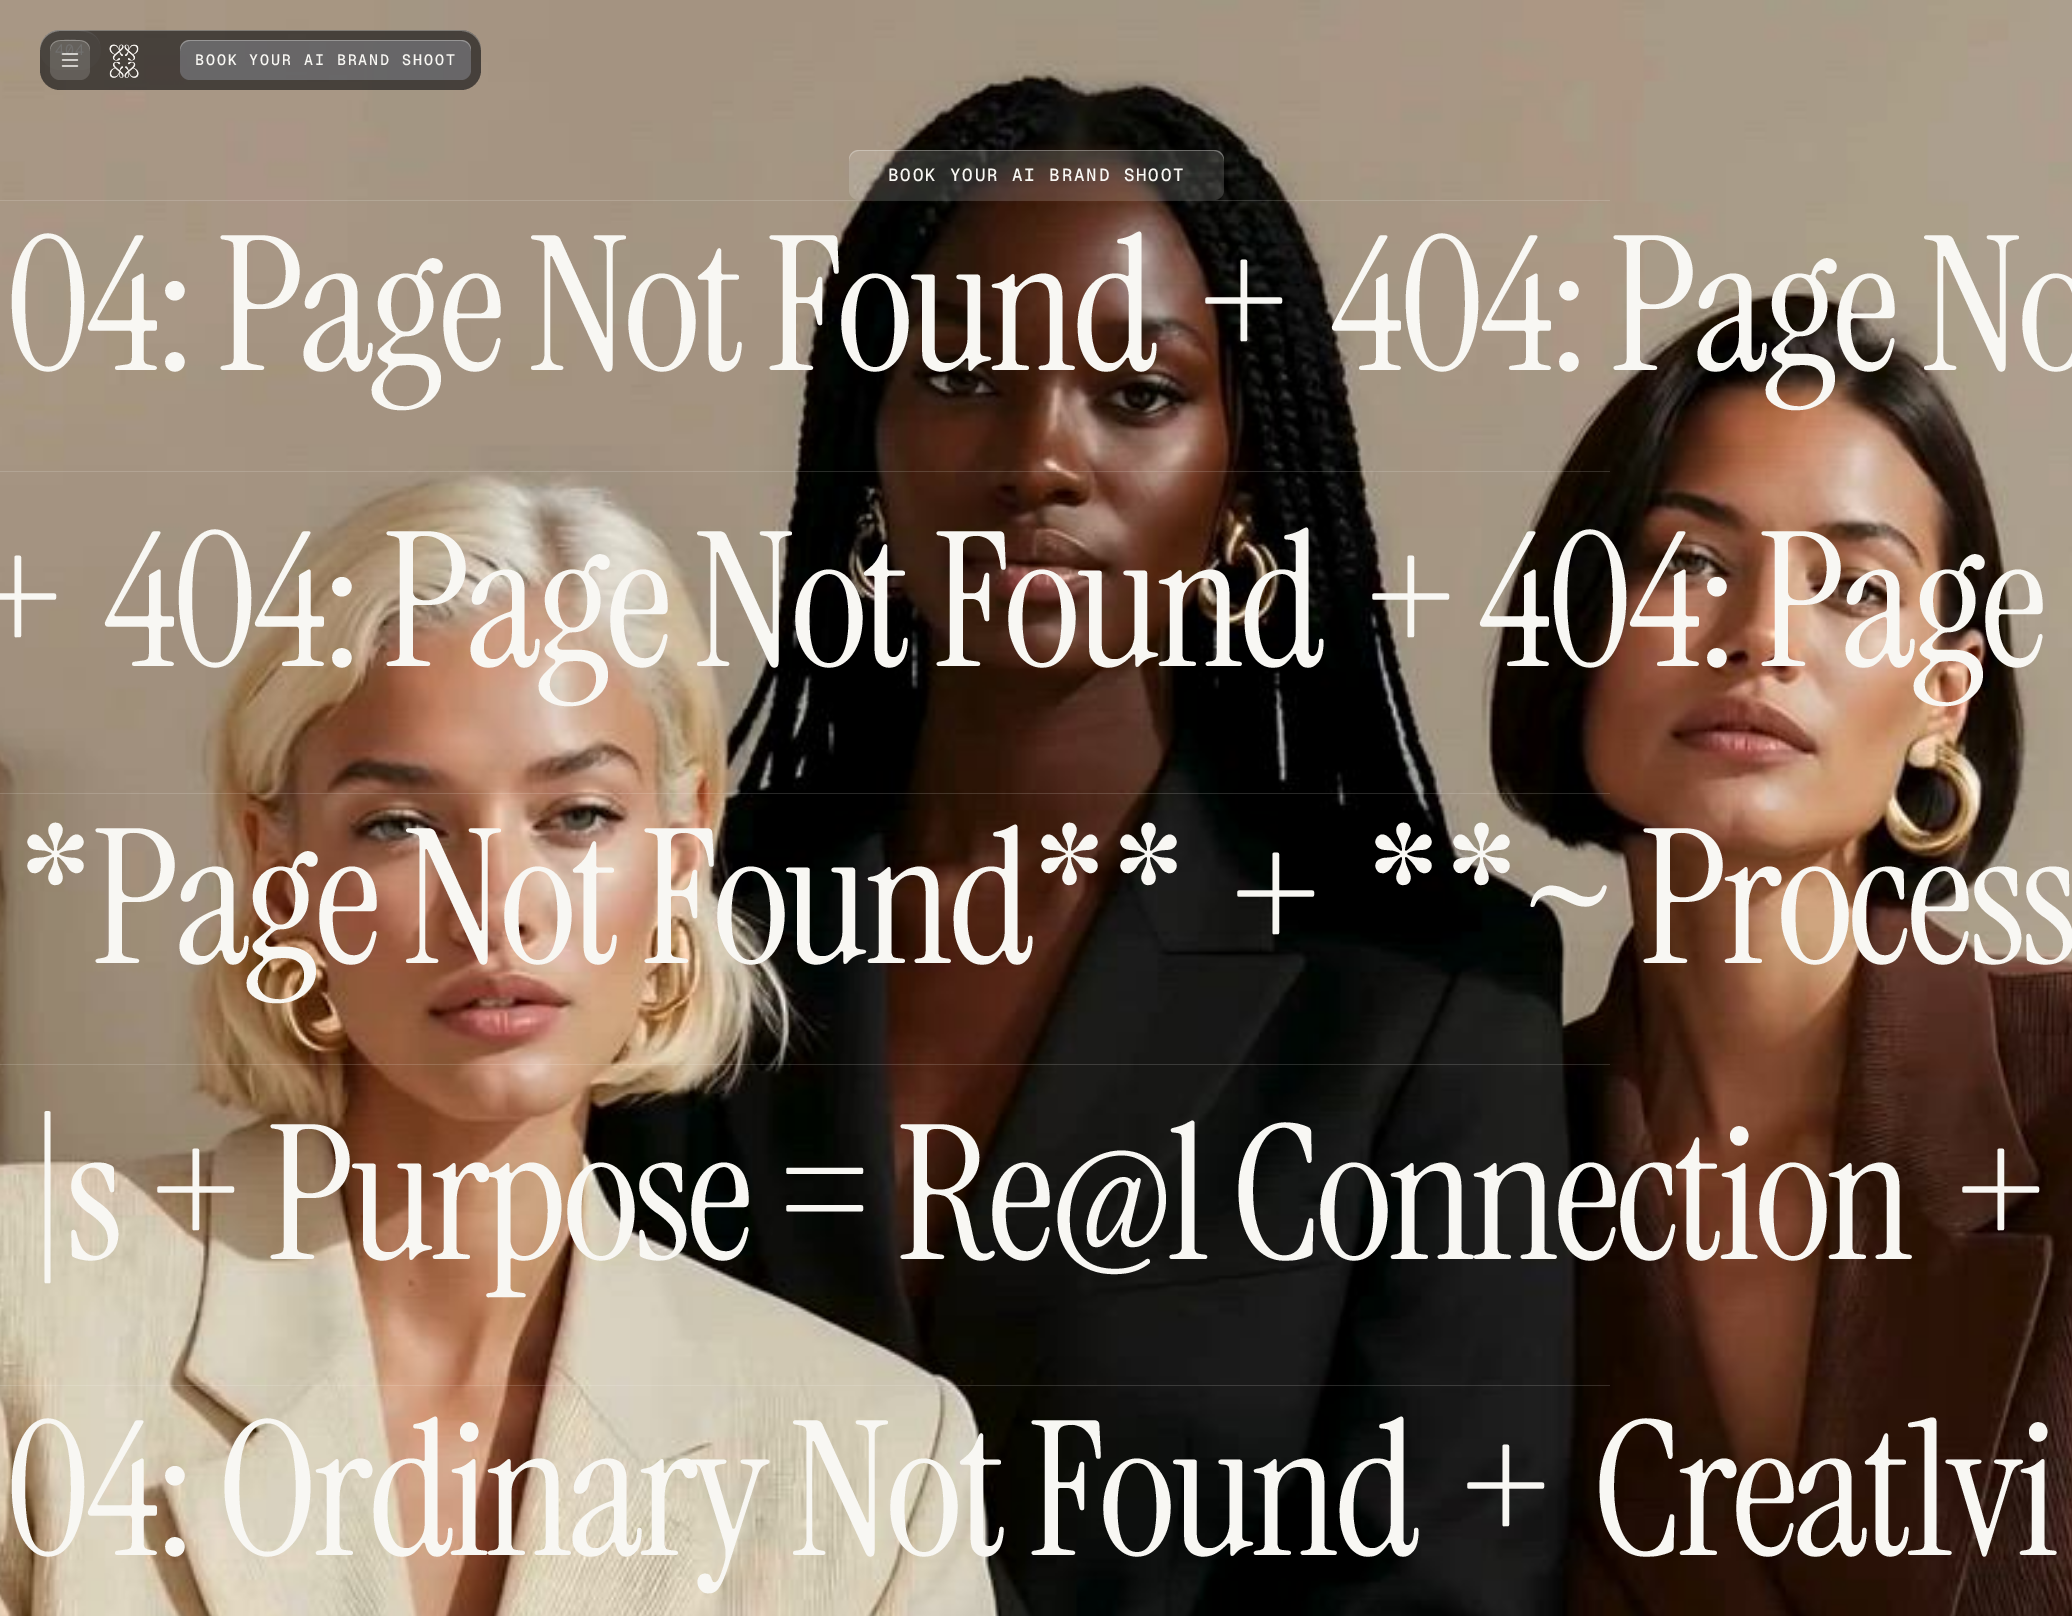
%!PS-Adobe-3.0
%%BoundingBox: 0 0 2072 1616
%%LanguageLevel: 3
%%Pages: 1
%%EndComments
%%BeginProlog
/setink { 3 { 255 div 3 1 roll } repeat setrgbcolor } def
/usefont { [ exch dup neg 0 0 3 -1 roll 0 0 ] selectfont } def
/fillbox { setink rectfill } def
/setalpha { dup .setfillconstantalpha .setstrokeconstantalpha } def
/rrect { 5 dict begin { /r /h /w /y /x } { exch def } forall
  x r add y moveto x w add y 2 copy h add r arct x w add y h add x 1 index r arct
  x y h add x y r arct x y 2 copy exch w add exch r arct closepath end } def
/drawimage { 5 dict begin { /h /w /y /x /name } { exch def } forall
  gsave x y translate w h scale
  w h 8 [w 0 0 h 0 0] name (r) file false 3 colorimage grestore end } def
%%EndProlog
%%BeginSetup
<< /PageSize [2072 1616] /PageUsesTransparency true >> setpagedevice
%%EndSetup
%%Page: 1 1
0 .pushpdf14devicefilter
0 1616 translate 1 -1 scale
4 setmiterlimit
0 0 2072 1616 255 255 255 fillbox
(assets/img1.rgb) 0 0 2072 1616 drawimage
0.08 setalpha
248 247 243 setink
40 30 61 40 20 rrect fill
0.32 setalpha
60 31 moveto 74 31 95 28 100 44 curveto 98 36 90 30 81 30 curveto 60 30 lineto 50 30 41 38 40 48 curveto 42 39 49 31 60 31 curveto closepath fill
/GeistMono-Regular 15 usefont
1 setalpha
211 209 201 setink
55 55 moveto 1 0 (404) ashow
0.16 setalpha
0 200 1610 1 248 247 243 fillbox
/InstrumentSerif-Regular 187.5 usefont
1 setalpha
5 370 moveto -5 0 (04: Page Not Found) ashow
1194 370 moveto -5 0 (+) ashow
1330 370 moveto -5 0 (404: Page No) ashow
0.16 setalpha
0 471 1610 1 248 247 243 fillbox
1 setalpha
-32 666 moveto -5 0 (+) ashow
103 666 moveto -5 0 (404: Page Not Found) ashow
1361 666 moveto -5 0 (+) ashow
1478 666 moveto -5 0 (404: Page) ashow
0.16 setalpha
0 793 1610 1 248 247 243 fillbox
1 setalpha
14 963 moveto -5 0 (*Page Not Found**) ashow
1226 963 moveto -5 0 (+) ashow
1362 963 moveto -5 0 (**~ Process) ashow
0.16 setalpha
0 1064 1610 1 248 247 243 fillbox
1 setalpha
24 1259 moveto -5 0 (|s + Purpose = Re@l Connection) ashow
1951 1259 moveto -5 0 (+) ashow
0.16 setalpha
0 1385 1610 1 248 247 243 fillbox
1 setalpha
5 1555 moveto -5 0 (04: Ordinary Not Found) ashow
1456 1555 moveto -5 0 (+) ashow
1592 1555 moveto -5 0 (Creat1vi) ashow
0.16 setalpha
849 150 375 50 10 rrect fill
0.32 setalpha
859 151 moveto 1214 151 lineto 1219 151 1224 156 1224 161 curveto 1224 160 lineto 1224 154 1220 150 1214 150 curveto 859 150 lineto 853 150 849 154 849 160 curveto 849 161 lineto 849 156 853 151 859 151 curveto closepath fill
/GeistMono-Medium 17.5 usefont
1 setalpha
888 181 moveto 1.9 0 (BOOK YOUR AI BRAND SHOOT) ashow
0.64 setalpha
16 16 18 setink
40 30 441 60 20 rrect fill
0.32 setalpha
248 247 243 setink
60 31 moveto 461 31 lineto 472 31 481 40 481 51 curveto 481 50 lineto 481 39 472 30 461 30 curveto 60 30 lineto 49 30 40 39 40 50 curveto 40 51 lineto 40 40 49 31 60 31 curveto closepath fill
0.16 setalpha
50 40 40 40 10 rrect fill
0.32 setalpha
60 41 moveto 80 41 lineto 86 41 90 46 90 51 curveto 90 39 79 40 70 40 curveto 61 40 50 39 50 51 curveto 50 46 54 41 60 41 curveto closepath fill
1 setalpha
1.2 setlinewidth
1 setlinecap
1 setlinejoin
62.5 60 moveto 77.5 60 lineto 62.5 54 moveto 77.5 54 lineto 62.5 66 moveto 77.5 66 lineto stroke
(assets/img2.rgb) 109 44 30 34 drawimage
0.58 setalpha
128 130 136 setink
180 40 291 40 10 rrect fill
0.32 setalpha
248 247 243 setink
190 41 moveto 461 41 lineto 467 41 471 46 471 51 curveto 471 50 lineto 471 44 467 40 461 40 curveto 190 40 lineto 184 40 180 44 180 50 curveto 180 51 lineto 180 46 184 41 190 41 curveto closepath fill
/GeistMono-Medium 15 usefont
1 setalpha
195 65 moveto 1.9 0 (BOOK YOUR AI BRAND SHOOT) ashow
.poppdf14devicefilter showpage
%%EOF
